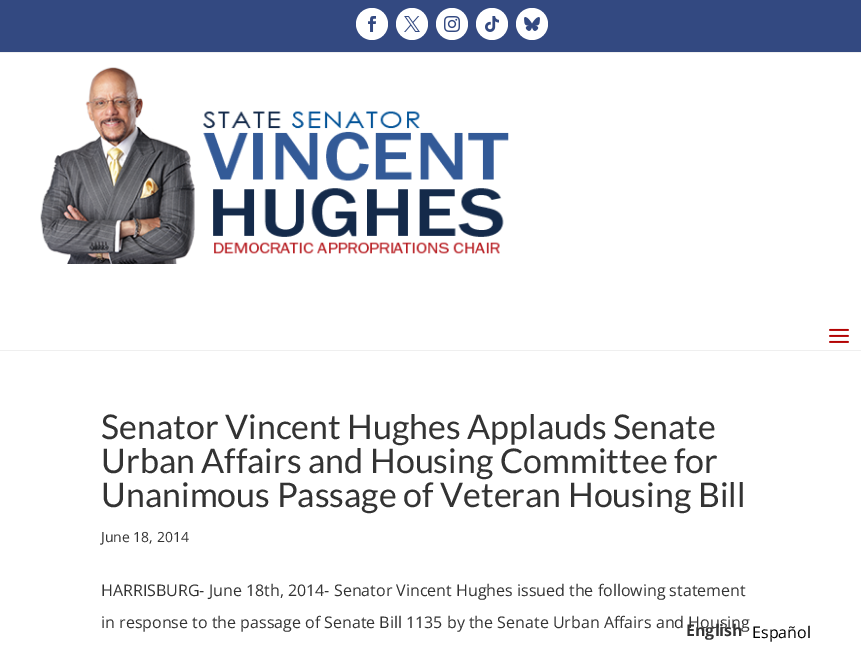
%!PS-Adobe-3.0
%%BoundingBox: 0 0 861 651
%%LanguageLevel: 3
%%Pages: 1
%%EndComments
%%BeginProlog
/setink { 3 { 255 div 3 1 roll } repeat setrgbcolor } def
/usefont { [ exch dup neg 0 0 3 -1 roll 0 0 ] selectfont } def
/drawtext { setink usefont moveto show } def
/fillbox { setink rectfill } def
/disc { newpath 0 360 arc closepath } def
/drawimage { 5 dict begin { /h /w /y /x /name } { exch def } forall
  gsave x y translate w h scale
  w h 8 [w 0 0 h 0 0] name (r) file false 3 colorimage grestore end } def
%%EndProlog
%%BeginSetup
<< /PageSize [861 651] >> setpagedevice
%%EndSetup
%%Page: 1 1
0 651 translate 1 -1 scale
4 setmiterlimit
0 0 861 651 255 255 255 fillbox
0 0 861 52 51 73 129 fillbox
255 255 255 setink
372 24 16 disc fill
(assets/img1.rgb) 368 16 8 16 drawimage
412 24 16 disc fill
(assets/img2.rgb) 404 16 16 16 drawimage
452 24 16 disc fill
(assets/img3.rgb) 444 16 16 16 drawimage
492 24 16 disc fill
(assets/img4.rgb) 485 16 14 16 drawimage
532 24 16 disc fill
(assets/img5.rgb) 524 17 16 14 drawimage
0 52 861 1 239 239 239 fillbox
0 350 861 1 239 239 239 fillbox
(assets/img6.rgb) 40 67 469 197 drawimage
(assets/img7.rgb) 829 328 20 15 drawimage
(Senator Vincent Hughes Applauds Senate) 101 439 /Lato-Regular 34 51 51 51 drawtext
(Urban Affairs and Housing Committee for) 101 473 /Lato-Regular 34 51 51 51 drawtext
(Unanimous Passage of Veteran Housing Bill) 101 507 /Lato-Regular 34 51 51 51 drawtext
(June 18, 2014) 101 542 /OpenSans-Regular 14 51 51 51 drawtext
(HARRISBURG- June 18th, 2014- Senator Vincent Hughes issued the following statement) 101 596 /OpenSans-Regular 16 51 51 51 drawtext
(in response to the passage of Senate Bill 1135 by the Senate Urban Affairs and Housing) 101 628 /OpenSans-Regular 16 51 51 51 drawtext
(English) 686 636 /OpenSans-Bold 16 51 51 51 drawtext
(Español) 752 638 /OpenSans-Regular 16 0 0 0 drawtext
showpage
%%EOF
